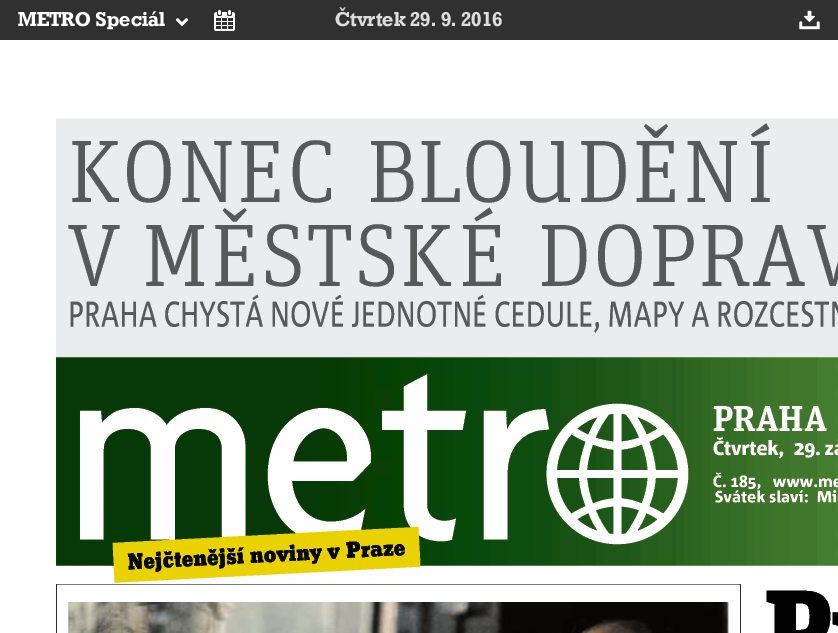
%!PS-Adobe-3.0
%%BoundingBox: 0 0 838 633
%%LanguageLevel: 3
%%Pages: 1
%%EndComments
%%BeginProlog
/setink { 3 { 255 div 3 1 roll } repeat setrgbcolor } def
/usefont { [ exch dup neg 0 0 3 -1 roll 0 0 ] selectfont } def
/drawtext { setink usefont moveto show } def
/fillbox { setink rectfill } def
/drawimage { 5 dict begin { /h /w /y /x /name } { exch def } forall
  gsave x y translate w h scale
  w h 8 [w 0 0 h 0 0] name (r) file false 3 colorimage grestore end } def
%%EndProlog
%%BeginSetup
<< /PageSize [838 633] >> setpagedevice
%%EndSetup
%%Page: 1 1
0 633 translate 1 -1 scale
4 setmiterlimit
0 0 838 633 255 255 255 fillbox
0 0 838 40 48 48 48 fillbox
(METRO Speciál) 18 26 /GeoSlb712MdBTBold-Bold 20 255 255 255 drawtext
(assets/img1.rgb) 176 18 12 8 drawimage
(assets/img2.rgb) 214 10 21 21 drawimage
(Čtvrtek 29. 9. 2016) 335 26 /GeoSlb712MdBTBold-Bold 20 221 221 221 drawtext
(assets/img3.rgb) 799 10 21 20 drawimage
(assets/img4.rgb) 48 118 790 515 drawimage
showpage
%%EOF
